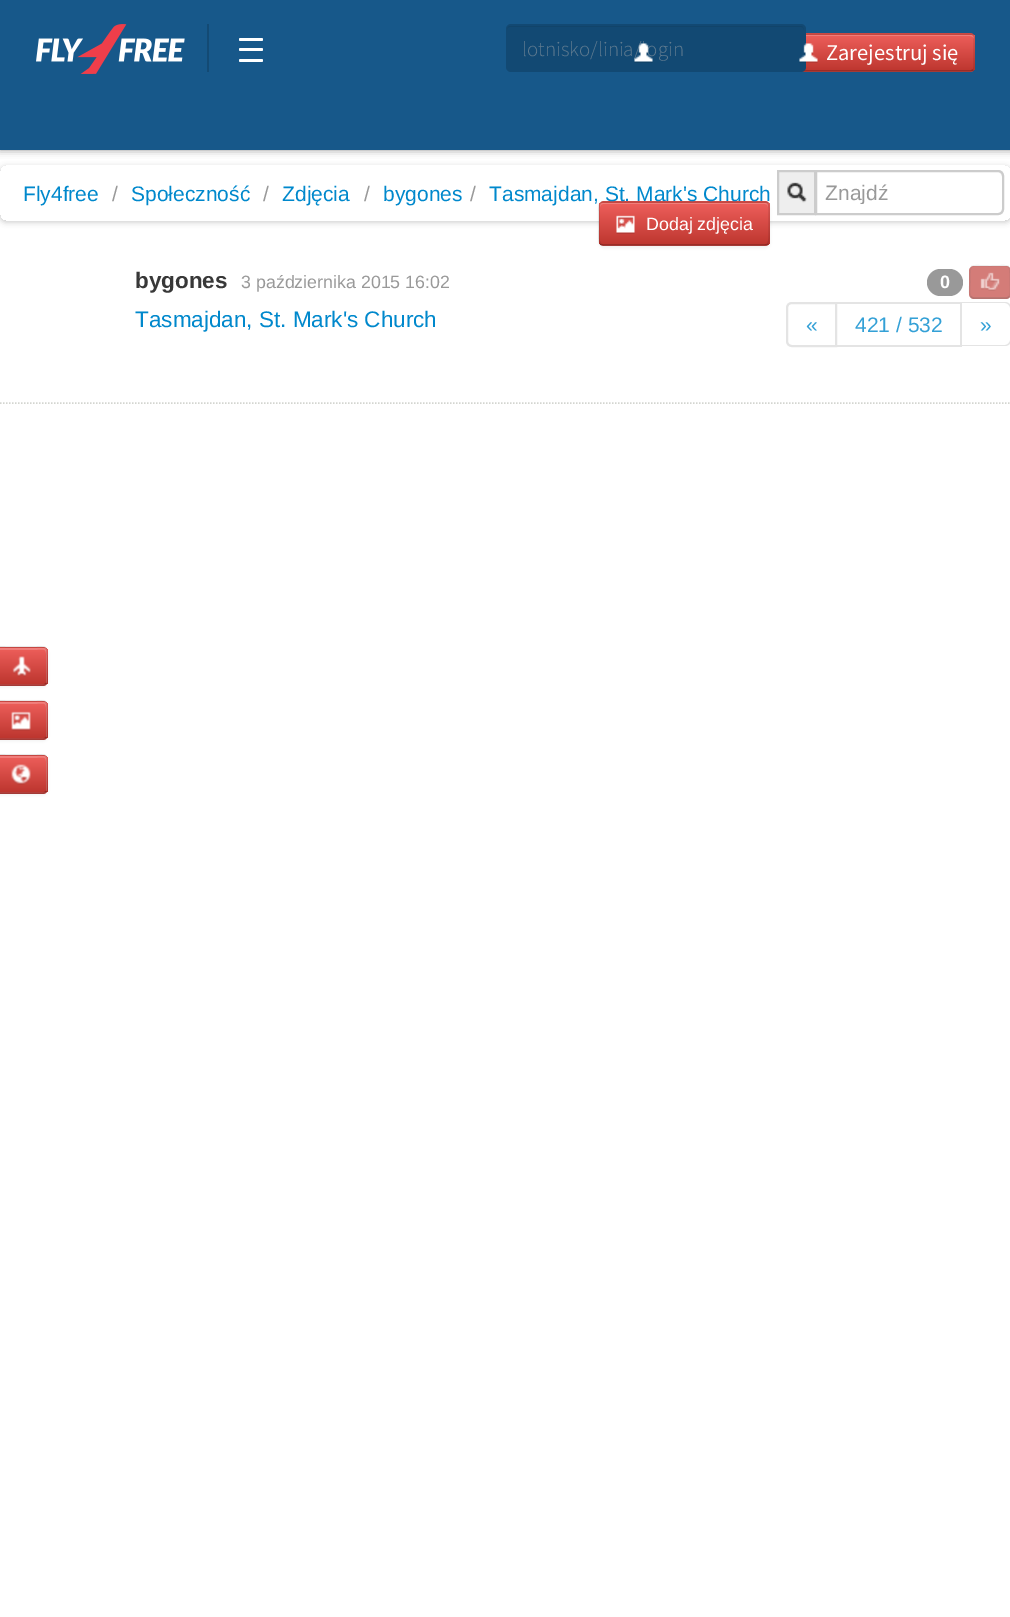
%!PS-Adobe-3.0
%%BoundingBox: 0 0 1010 1617
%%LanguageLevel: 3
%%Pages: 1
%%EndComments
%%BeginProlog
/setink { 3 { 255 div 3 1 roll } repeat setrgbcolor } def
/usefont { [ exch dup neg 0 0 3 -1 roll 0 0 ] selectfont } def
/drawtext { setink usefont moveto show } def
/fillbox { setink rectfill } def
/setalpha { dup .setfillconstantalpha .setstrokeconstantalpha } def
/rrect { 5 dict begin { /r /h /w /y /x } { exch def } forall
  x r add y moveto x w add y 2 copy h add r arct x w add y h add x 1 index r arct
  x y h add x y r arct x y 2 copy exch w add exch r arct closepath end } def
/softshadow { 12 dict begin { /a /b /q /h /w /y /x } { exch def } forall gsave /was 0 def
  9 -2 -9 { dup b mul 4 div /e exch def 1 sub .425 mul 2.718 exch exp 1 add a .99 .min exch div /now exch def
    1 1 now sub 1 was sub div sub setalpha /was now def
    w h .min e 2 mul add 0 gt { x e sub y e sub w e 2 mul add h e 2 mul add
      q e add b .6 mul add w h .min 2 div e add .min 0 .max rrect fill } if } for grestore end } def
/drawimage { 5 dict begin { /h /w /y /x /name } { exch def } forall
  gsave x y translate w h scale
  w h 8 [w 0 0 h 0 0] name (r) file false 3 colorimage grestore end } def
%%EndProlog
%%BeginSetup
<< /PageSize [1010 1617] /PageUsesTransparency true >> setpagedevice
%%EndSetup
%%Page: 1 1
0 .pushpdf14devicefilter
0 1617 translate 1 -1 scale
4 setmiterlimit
0 0 1010 1617 255 255 255 fillbox
0 0 0 setink
0 0 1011 150 0 4 0.4 softshadow
0 0 1010 150 23 88 138 fillbox
(assets/img1.rgb) 36 24 149 50 drawimage
207 24 2 48 19 74 116 fillbox
255 255 255 setink
239 59 24 3 1.5 rrect fill
239 38 24 3 1.5 rrect fill
239 48 24 3 1.5 rrect fill
218 79 73 setink
785 33 190 39 5 rrect fill
gsave
785 33 190 39 5 rrect clip newpath
gsave 804 35 moveto 975 35 lineto 975 71 lineto 804 71 lineto closepath clip newpath
<< /ShadingType 2 /ColorSpace /DeviceRGB /Coords [880 34 880 71] /Extend [true true] /Function << /FunctionType 2 /Domain [0 1] /C0 [0.933 0.373 0.357] /C1 [0.741 0.212 0.184] /N 1 >> >> shfill grestore
grestore
240 125 122 setink
789 36 moveto 970 36 lineto 972 36 974 37 974 39 curveto 974 37 973 35 971 35 curveto 789 35 lineto 787 35 786 37 786 39 curveto 786 37 787 36 789 36 curveto closepath fill
0.25 setalpha
0 0 0 setink
1.5 setlinewidth
973 70 moveto 971 71 lineto 819 71 lineto 789 71 lineto 786.5 70 lineto stroke
0.1 setalpha
786.5 70 moveto 785.5 69.5 785 68.5 785 67.5 curveto 785 37.5 lineto 785 36.5 785.5 35.5 786.5 35 curveto 787 34 788 34 789 34 curveto 970.5 34 lineto 971.5 34 972.5 34 973 35 curveto 974 35.5 974 36.5 974 37.5 curveto 974 67.5 lineto 974 68.5 974 69.5 973 70 curveto stroke
1 setalpha
18 73 115 setink
506 24 300 48 5 rrect fill
17 68 106 setink
510 27 moveto 801 27 lineto 803 27 804 28 804 30 curveto 803 27 lineto 802 26 lineto 510 26 lineto 508 26 507 28 507 30 curveto 507 28 508 27 510 27 curveto closepath fill
(lotnisko/linia/login) 522 56 /SourceSansPro-Light 21 94 122 143 drawtext
(assets/img2.rgb) 634 43 19 20 drawimage
(assets/img3.rgb) 799 43 19 20 drawimage
(Zarejestruj się) 826 60 /SourceSansPro-Regular 22.5 255 255 255 drawtext
gsave
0 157 moveto 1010 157 lineto 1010 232 lineto 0 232 lineto closepath 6 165 moveto 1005 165 lineto 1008.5 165 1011 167.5 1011 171 curveto 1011 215 lineto 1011 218.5 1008.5 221 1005 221 curveto 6 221 lineto 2.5 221 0 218.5 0 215 curveto 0 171 lineto 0 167.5 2.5 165 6 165 curveto closepath eoclip newpath
0 0 0 setink
0 167 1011 55 6 3 0.22 softshadow
grestore
(Fly4free) 23 201 /LiberationSans-Regular 21 0 136 204 drawtext
(/) 112 201 /LiberationSans-Regular 21 153 153 153 drawtext
(Społeczność) 131 201 /LiberationSans-Regular 21 0 136 204 drawtext
(/) 263 201 /LiberationSans-Regular 21 153 153 153 drawtext
(Zdjęcia) 282 201 /LiberationSans-Regular 21 0 136 204 drawtext
(/) 364 201 /LiberationSans-Regular 21 153 153 153 drawtext
(bygones) 383 201 /LiberationSans-Regular 21 0 136 204 drawtext
(/) 470 201 /LiberationSans-Regular 21 153 153 153 drawtext
0 0 0 setink
599 203 171 45 5 1.5 0.05 softshadow
218 79 73 setink
599 201 171 45 5 rrect fill
gsave
599 201 171 45 5 rrect clip newpath
gsave 599 203 moveto 770 203 lineto 770 245 lineto 599 245 lineto closepath clip newpath
<< /ShadingType 2 /ColorSpace /DeviceRGB /Coords [684 203 684 245] /Extend [true true] /Function << /FunctionType 2 /Domain [0 1] /C0 [0.933 0.373 0.357] /C1 [0.741 0.212 0.184] /N 1 >> >> shfill grestore
grestore
241 127 123 setink
603 204 moveto 765 204 lineto 767 204 768 205 768 207 curveto 768 206 lineto 768 204 767 203 765 203 curveto 603 203 lineto 601 203 600 204 600 206 curveto 600 207 lineto 600 205 601 204 603 204 curveto closepath fill
0.25 setalpha
0 0 0 setink
767.5 244 moveto 767 245 766 245 765 245 curveto 603 245 lineto 602 245 601 245 600.5 244 curveto stroke
0.1 setalpha
600.5 244 moveto 598 241.5 599 232.5 599 229.5 curveto 599 211.5 lineto 599 208.5 598 202 603 202 curveto 765 202 lineto 770 202 769 208.5 769 211.5 curveto 769 229.5 lineto 769 232.5 770 241.5 767.5 244 curveto stroke
1 setalpha
(Tasmajdan, St. Mark's Church) 489 201 /LiberationSans-Regular 21 0 136 204 drawtext
238 238 238 setink
778 171 moveto 815 171 lineto 815 214 lineto 778 214 lineto closepath gsave fill grestore
204 204 204 setink
2 setlinewidth
stroke
(assets/img4.rgb) 787 182 20 21 drawimage
255 255 255 setink
815 170 moveto 998 170 lineto 1001.5 170 1004 172.5 1004 176 curveto 1004 209 lineto 1004 212.5 1001.5 215 998 215 curveto 815 215 lineto closepath fill
236 236 236 setink
816 172 moveto 998 172 lineto 1000 172 1002 175 1002 177 curveto 1002 174 1000 171 997 171 curveto 816 171 lineto closepath fill
204 204 204 setink
816 171 moveto 998 171 lineto 1001 171 1003 173 1003 176 curveto 1003 209 lineto 1003 212 1001 214 998 214 curveto 816 214 lineto closepath stroke
gsave
825 180 168 24 rectclip
(Znajdź) 825 200 /LiberationSans-Regular 21 153 153 153 drawtext
grestore
(assets/img5.rgb) 616 215 19 19 drawimage
(Dodaj zdjęcia) 646 230 /LiberationSans-Regular 17.8 255 255 255 drawtext
211 213 208 setink
1.5 setlinewidth
[1.5 1.5] 0 setdash
0 403 moveto 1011 403 lineto stroke
(bygones) 135 288 /LiberationSans-Bold 22.5 56 56 56 drawtext
(3 października 2015 16:02) 241 288 /LiberationSans-Regular 17.8 153 153 153 drawtext
927 269 36 27 13.5 rrect fill
(0) 940 288 /LiberationSans-Bold 18 255 255 255 drawtext
212 124 120 setink
969 266 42 33 5 rrect fill
0.25 setalpha
89 89 89 setink
[] 0 setdash
1009 296.5 moveto 1008.5 297.5 1007.5 298 1006.5 298 curveto 973.5 298 lineto 972.5 298 971.5 297.5 971 296.5 curveto stroke
0.1 setalpha
971 296.5 moveto 968.5 294.5 970 285 970 282 curveto 970 262 968 266 990 266 curveto 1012 266 1010 262 1010 282 curveto 1010 285 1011.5 294.5 1009 296.5 curveto stroke
1 setalpha
(assets/img6.rgb) 980 272 20 19 drawimage
(Tasmajdan, St. Mark's Church) 135 327 /LiberationSans-Regular 22.5 0 136 204 drawtext
228 228 228 setink
2 setlinewidth
792 303 moveto 836 303 lineto 836 346 lineto 792 346 lineto 789 346 787 344 787 341 curveto 787 308 lineto 787 305 789 303 792 303 curveto closepath stroke
(«) 806 332 /LiberationSans-Regular 21 51 160 214 drawtext
837 302 125 2 228 228 228 fillbox
960 302 2 45 228 228 228 fillbox
837 345 125 2 228 228 228 fillbox
(421 / 532) 855 332 /LiberationSans-Regular 21 51 160 214 drawtext
228 228 228 setink
962 302 moveto 1005 302 lineto 1008 302 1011 304 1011 308 curveto 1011 340 lineto 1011 344 1008 346 1005 346 curveto 962 346 lineto closepath 962 303 moveto 1005 303 lineto 1007 303 1010 305 1010 308 curveto 1010 340 lineto 1010 343 1007 345 1005 345 curveto 962 345 lineto closepath eofill
(») 980 332 /LiberationSans-Regular 21 51 160 214 drawtext
0 0 0 setink
-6 648 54 39 5 1.5 0.05 softshadow
218 79 73 setink
-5 647 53 39 5 rrect fill
gsave
-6 647 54 39 5 rrect clip newpath
gsave 0 648 moveto 48 648 lineto 48 684 lineto 0 684 lineto closepath clip newpath
<< /ShadingType 2 /ColorSpace /DeviceRGB /Coords [21 648 21 684] /Extend [true true] /Function << /FunctionType 2 /Domain [0 1] /C0 [0.933 0.373 0.357] /C1 [0.741 0.212 0.184] /N 1 >> >> shfill grestore
grestore
0.2 setalpha
255 255 255 setink
-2 650 moveto 29 650 lineto 48 650 46 646 46 662 curveto 46 683 lineto 47 683 47 682 47 681 curveto 47 651 lineto 47 649 46 648 44 648 curveto -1 648 lineto -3 648 -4 649 -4 651 curveto -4 652 lineto -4 651 -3 650 -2 650 curveto closepath fill
0.25 setalpha
0 0 0 setink
1.5 setlinewidth
46 683.5 moveto 45.5 684.5 44.5 685 43.5 685 curveto -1.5 685 lineto -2.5 685 -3.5 684.5 -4 683.5 curveto stroke
0.1 setalpha
-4 683.5 moveto -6 682 -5 678 -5 676 curveto -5 656 lineto -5 646 -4.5 647 6 647 curveto 36 647 lineto 46.5 647 47 646 47 656 curveto 47 676 lineto 47 678 48 682 46 683.5 curveto stroke
1 setalpha
(assets/img7.rgb) 12 656 19 21 drawimage
-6 702 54 39 5 1.5 0.05 softshadow
218 79 73 setink
-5 701 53 39 5 rrect fill
gsave
-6 701 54 39 5 rrect clip newpath
gsave 0 702 moveto 48 702 lineto 48 738 lineto 0 738 lineto closepath clip newpath
<< /ShadingType 2 /ColorSpace /DeviceRGB /Coords [21 702 21 738] /Extend [true true] /Function << /FunctionType 2 /Domain [0 1] /C0 [0.933 0.373 0.357] /C1 [0.741 0.212 0.184] /N 1 >> >> shfill grestore
grestore
0.2 setalpha
255 255 255 setink
-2 704 moveto 29 704 lineto 48 704 46 700 46 716 curveto 46 737 lineto 47 737 47 736 47 735 curveto 47 705 lineto 47 703 46 702 44 702 curveto -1 702 lineto -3 702 -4 703 -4 705 curveto -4 706 lineto -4 705 -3 704 -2 704 curveto closepath fill
0.25 setalpha
0 0 0 setink
46 737.5 moveto 45.5 738.5 44.5 739 43.5 739 curveto -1.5 739 lineto -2.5 739 -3.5 738.5 -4 737.5 curveto stroke
0.1 setalpha
-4 737.5 moveto -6 736 -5 732 -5 730 curveto -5 710 lineto -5 700 -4.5 701 6 701 curveto 36 701 lineto 46.5 701 47 700 47 710 curveto 47 730 lineto 47 732 48 736 46 737.5 curveto stroke
1 setalpha
(assets/img8.rgb) 11 711 20 20 drawimage
-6 756 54 39 5 1.5 0.05 softshadow
218 79 73 setink
-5 755 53 39 5 rrect fill
gsave
-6 755 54 39 5 rrect clip newpath
gsave 0 756 moveto 48 756 lineto 48 792 lineto 0 792 lineto closepath clip newpath
<< /ShadingType 2 /ColorSpace /DeviceRGB /Coords [21 756 21 792] /Extend [true true] /Function << /FunctionType 2 /Domain [0 1] /C0 [0.933 0.373 0.357] /C1 [0.741 0.212 0.184] /N 1 >> >> shfill grestore
grestore
0.2 setalpha
255 255 255 setink
-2 758 moveto 29 758 lineto 48 758 46 754 46 770 curveto 46 791 lineto 47 791 47 790 47 789 curveto 47 759 lineto 47 757 46 756 44 756 curveto -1 756 lineto -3 756 -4 757 -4 759 curveto -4 760 lineto -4 759 -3 758 -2 758 curveto closepath fill
0.25 setalpha
0 0 0 setink
46 791.5 moveto 45.5 792.5 44.5 793 43.5 793 curveto -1.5 793 lineto -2.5 793 -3.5 792.5 -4 791.5 curveto stroke
0.1 setalpha
-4 791.5 moveto -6 790 -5 786 -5 784 curveto -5 764 lineto -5 754 -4.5 755 6 755 curveto 36 755 lineto 46.5 755 47 754 47 764 curveto 47 784 lineto 47 786 48 790 46 791.5 curveto stroke
1 setalpha
(assets/img9.rgb) 11 764 20 21 drawimage
.poppdf14devicefilter showpage
%%EOF
